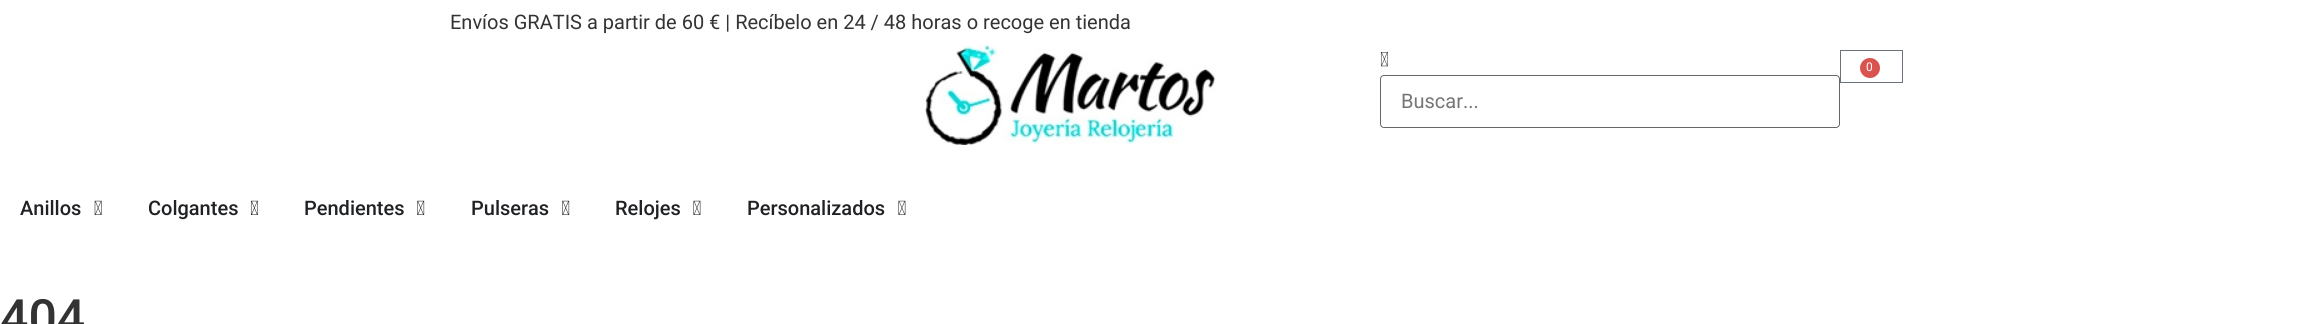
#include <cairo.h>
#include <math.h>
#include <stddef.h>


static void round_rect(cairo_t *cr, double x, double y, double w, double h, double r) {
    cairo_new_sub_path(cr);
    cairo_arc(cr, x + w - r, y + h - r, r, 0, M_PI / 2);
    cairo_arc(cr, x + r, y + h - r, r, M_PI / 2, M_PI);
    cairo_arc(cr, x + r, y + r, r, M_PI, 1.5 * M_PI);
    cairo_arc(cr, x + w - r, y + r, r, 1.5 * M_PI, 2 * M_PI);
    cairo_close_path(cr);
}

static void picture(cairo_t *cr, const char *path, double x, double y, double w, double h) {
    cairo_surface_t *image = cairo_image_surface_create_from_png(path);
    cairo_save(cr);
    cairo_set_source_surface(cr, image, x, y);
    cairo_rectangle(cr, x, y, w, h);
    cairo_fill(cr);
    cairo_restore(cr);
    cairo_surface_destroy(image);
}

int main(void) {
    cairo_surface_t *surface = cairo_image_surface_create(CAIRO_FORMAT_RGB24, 2299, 324);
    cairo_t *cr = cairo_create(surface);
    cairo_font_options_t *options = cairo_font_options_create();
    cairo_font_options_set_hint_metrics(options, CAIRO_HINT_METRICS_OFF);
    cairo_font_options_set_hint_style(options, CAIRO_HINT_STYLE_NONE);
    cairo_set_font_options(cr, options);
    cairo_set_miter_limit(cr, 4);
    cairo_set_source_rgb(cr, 1, 1, 1);
    cairo_paint(cr);
    cairo_select_font_face(cr, "Roboto", CAIRO_FONT_SLANT_NORMAL, CAIRO_FONT_WEIGHT_NORMAL);
    cairo_set_font_size(cr, 20);
    cairo_set_source_rgb(cr, 0.2, 0.2, 0.2);
    cairo_move_to(cr, 450, 29);
    cairo_show_text(cr, "Envíos GRATIS a partir de 60 € | Recíbelo en 24 / 48 horas o recoge en tienda");
    picture(cr, "img1.png", 925, 45, 291, 100);
    cairo_rectangle(cr, 1840.5, 50.5, 62, 32);
    cairo_set_source_rgb(cr, 0.412, 0.447, 0.49);
    cairo_set_line_width(cr, 1);
    cairo_stroke(cr);
    cairo_set_source_rgb(cr, 0.851, 0.325, 0.31);
    cairo_arc(cr, 1870, 68, 10, 0, 2 * M_PI);
    cairo_fill(cr);
    cairo_set_font_size(cr, 12);
    cairo_set_source_rgb(cr, 1, 1, 1);
    cairo_move_to(cr, 1866, 71);
    cairo_show_text(cr, "0");
    picture(cr, "img2.png", 1380, 52, 8, 15);
    round_rect(cr, 1380.5, 75.5, 459, 52, 3.5);
    cairo_set_source_rgb(cr, 0.4, 0.4, 0.4);
    cairo_stroke(cr);
    cairo_set_font_size(cr, 20);
    cairo_set_source_rgb(cr, 0.459, 0.459, 0.459);
    cairo_move_to(cr, 1401, 108);
    cairo_show_text(cr, "Buscar...");
    cairo_select_font_face(cr, "Roboto Medium", CAIRO_FONT_SLANT_NORMAL, CAIRO_FONT_WEIGHT_NORMAL);
    cairo_set_source_rgb(cr, 0.122, 0.129, 0.141);
    cairo_move_to(cr, 20, 215);
    cairo_show_text(cr, "Anillos");
    picture(cr, "img3.png", 94, 200, 8, 15);
    cairo_move_to(cr, 148, 215);
    cairo_show_text(cr, "Colgantes");
    picture(cr, "img4.png", 250, 200, 8, 15);
    cairo_move_to(cr, 304, 215);
    cairo_show_text(cr, "Pendientes");
    picture(cr, "img5.png", 417, 200, 8, 15);
    cairo_move_to(cr, 471, 215);
    cairo_show_text(cr, "Pulseras");
    picture(cr, "img5.png", 562, 200, 8, 15);
    cairo_move_to(cr, 615, 215);
    cairo_show_text(cr, "Relojes");
    picture(cr, "img6.png", 693, 200, 8, 15);
    cairo_move_to(cr, 747, 215);
    cairo_show_text(cr, "Personalizados");
    picture(cr, "img6.png", 898, 200, 8, 15);
    cairo_set_font_size(cr, 50);
    cairo_set_source_rgb(cr, 0.2, 0.2, 0.2);
    cairo_move_to(cr, 0, 335);
    cairo_show_text(cr, "404");
    cairo_surface_write_to_png(surface, "page.png");
    cairo_font_options_destroy(options);
    cairo_destroy(cr);
    cairo_surface_destroy(surface);
    return 0;
}
